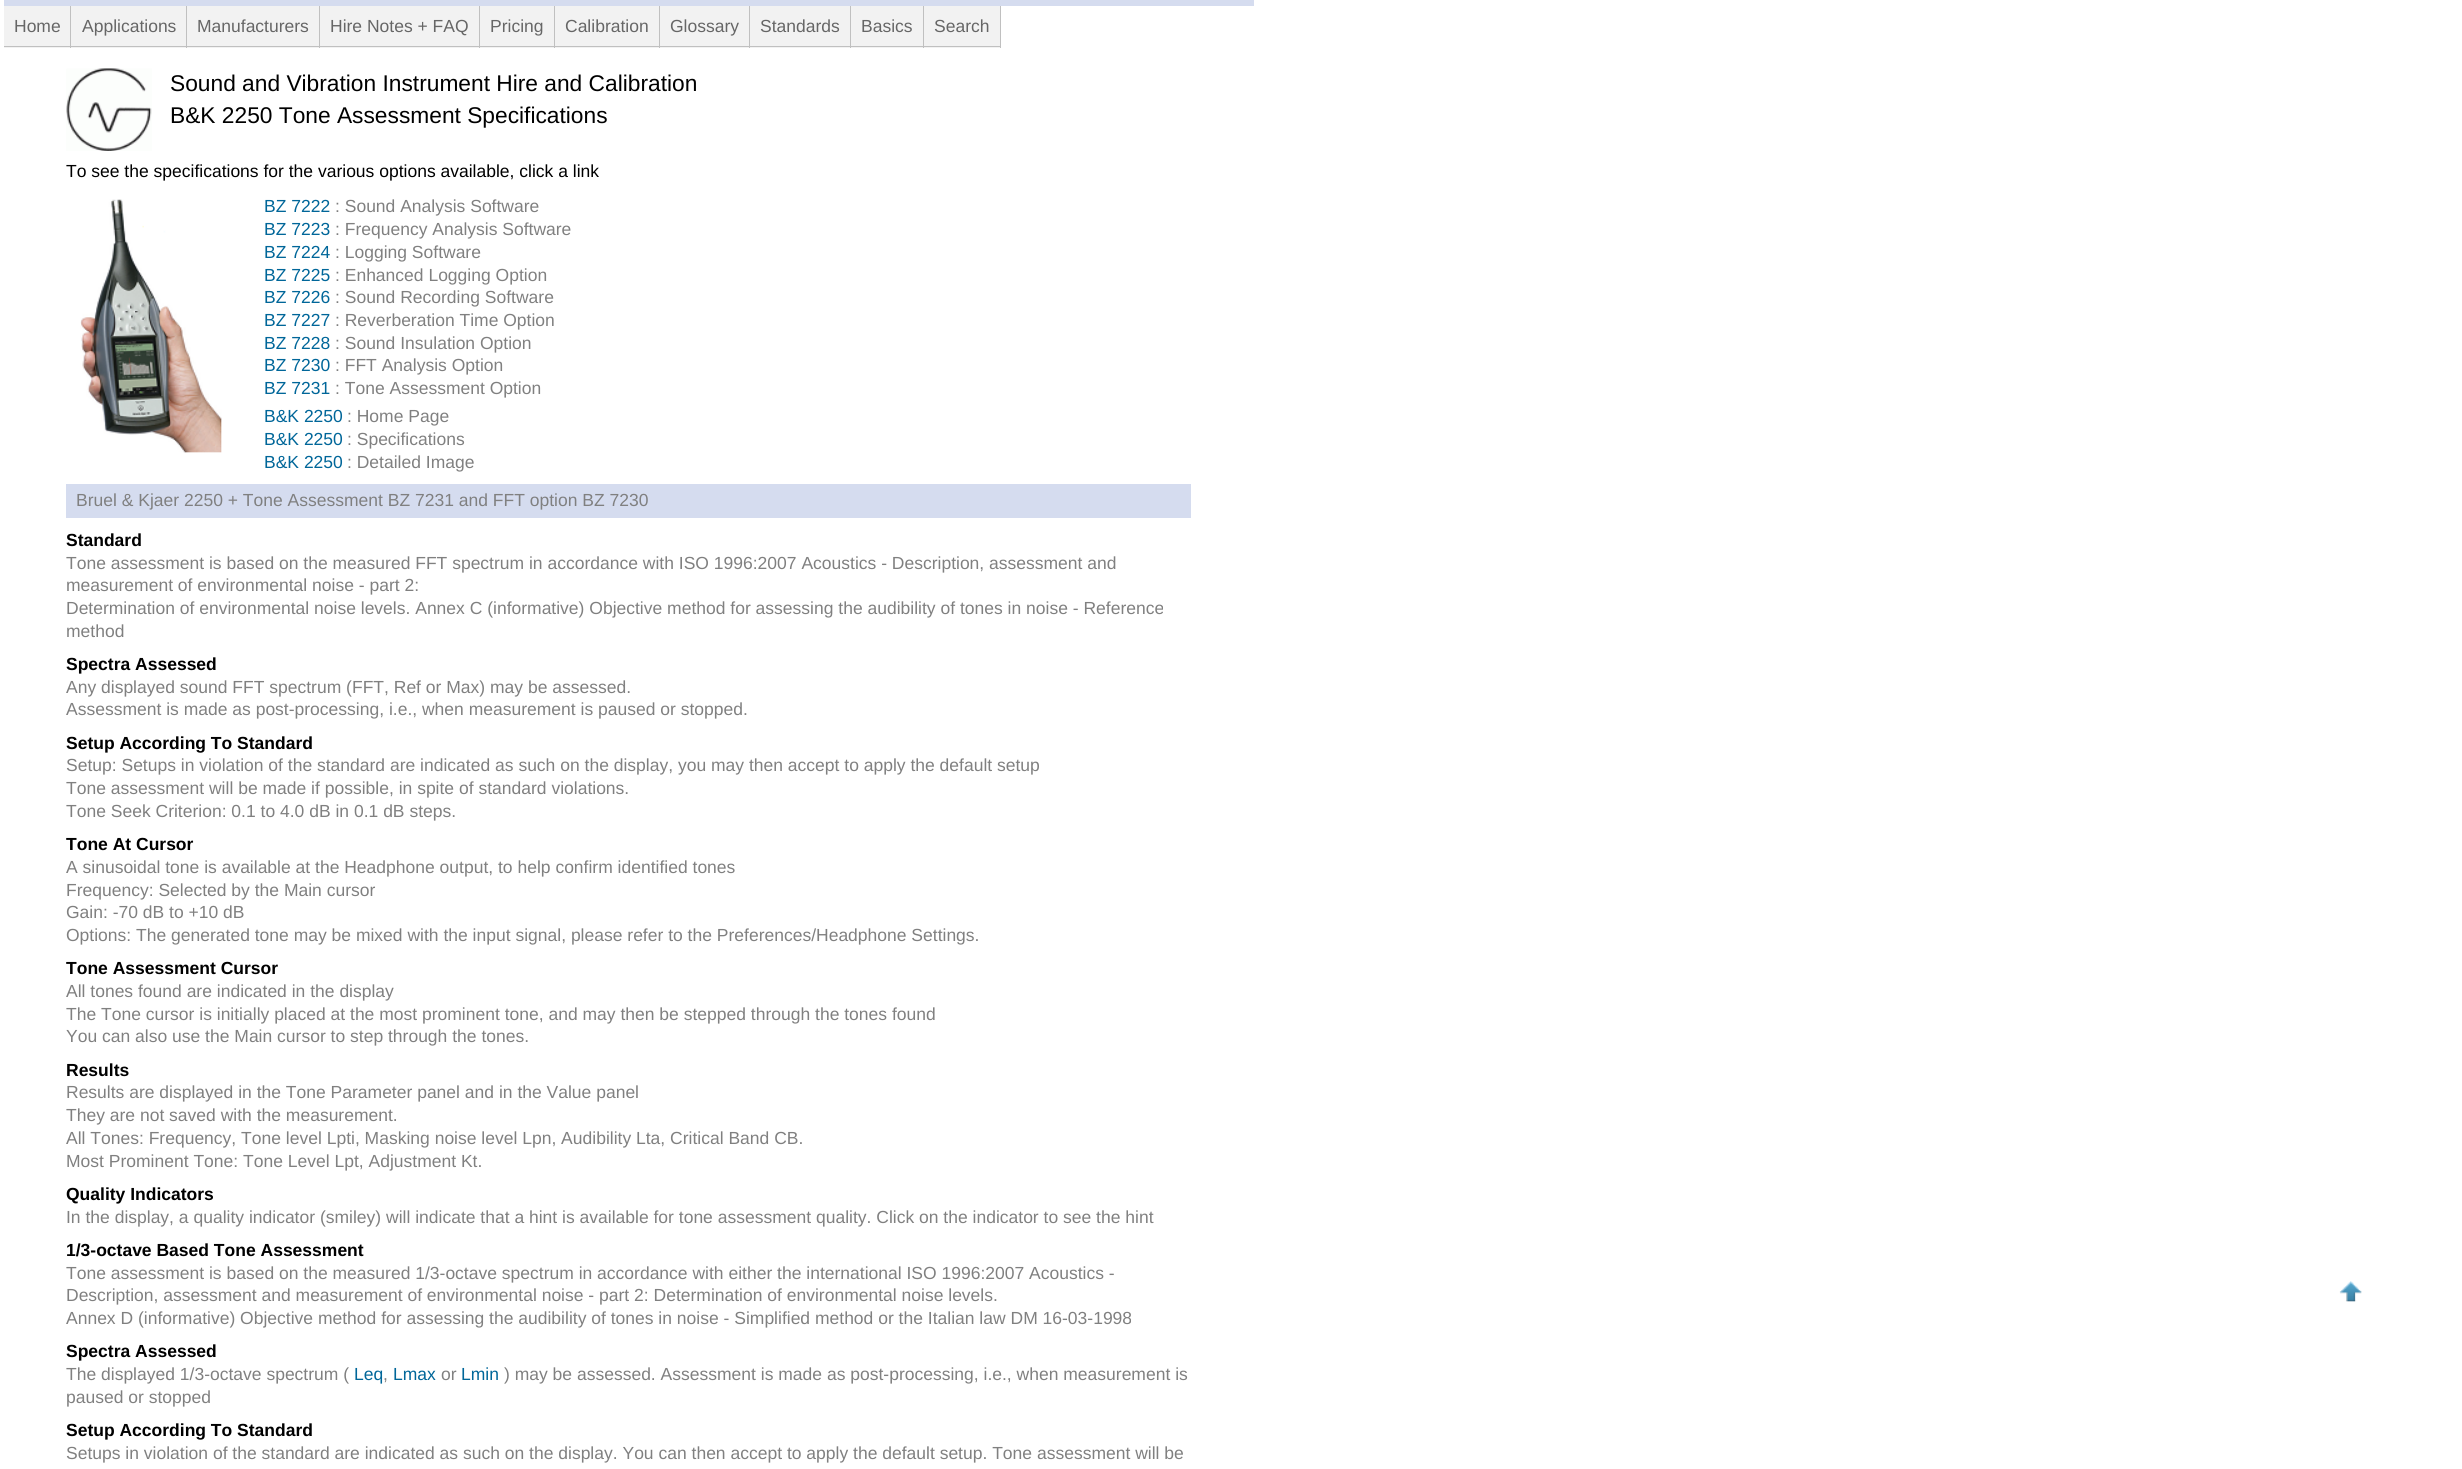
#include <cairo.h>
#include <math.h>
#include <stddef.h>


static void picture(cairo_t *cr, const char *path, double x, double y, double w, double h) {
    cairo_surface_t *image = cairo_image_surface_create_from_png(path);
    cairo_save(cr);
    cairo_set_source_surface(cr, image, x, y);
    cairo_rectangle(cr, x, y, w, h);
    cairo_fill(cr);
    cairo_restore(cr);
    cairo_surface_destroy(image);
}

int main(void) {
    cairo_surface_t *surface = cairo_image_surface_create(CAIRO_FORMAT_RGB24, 2462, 1469);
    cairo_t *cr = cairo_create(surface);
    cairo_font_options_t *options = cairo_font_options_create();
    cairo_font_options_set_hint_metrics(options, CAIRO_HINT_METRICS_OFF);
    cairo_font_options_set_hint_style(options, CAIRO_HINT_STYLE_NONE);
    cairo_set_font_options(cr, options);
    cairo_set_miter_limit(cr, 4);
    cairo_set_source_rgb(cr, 1, 1, 1);
    cairo_paint(cr);
    cairo_set_source_rgb(cr, 0.835, 0.863, 0.937);
    cairo_rectangle(cr, 4, 0, 1250, 6);
    cairo_fill(cr);
    cairo_set_source_rgb(cr, 0.949, 0.949, 0.949);
    cairo_rectangle(cr, 4, 6, 66, 42);
    cairo_fill(cr);
    cairo_set_source_rgb(cr, 0.753, 0.753, 0.753);
    cairo_rectangle(cr, 70, 6, 1, 42);
    cairo_fill(cr);
    cairo_rectangle(cr, 4, 46, 67, 1);
    cairo_fill(cr);
    cairo_select_font_face(cr, "Liberation Sans", CAIRO_FONT_SLANT_NORMAL, CAIRO_FONT_WEIGHT_NORMAL);
    cairo_set_font_size(cr, 17.5);
    cairo_set_source_rgb(cr, 0.4, 0.4, 0.4);
    cairo_move_to(cr, 14, 32);
    cairo_show_text(cr, "Home");
    cairo_set_source_rgb(cr, 0.949, 0.949, 0.949);
    cairo_rectangle(cr, 71, 6, 248, 42);
    cairo_fill(cr);
    cairo_set_source_rgb(cr, 0.753, 0.753, 0.753);
    cairo_rectangle(cr, 186, 6, 1, 42);
    cairo_fill(cr);
    cairo_rectangle(cr, 71, 46, 117, 1);
    cairo_fill(cr);
    cairo_set_source_rgb(cr, 0.4, 0.4, 0.4);
    cairo_move_to(cr, 82, 32);
    cairo_show_text(cr, "Applications");
    cairo_set_source_rgb(cr, 0.753, 0.753, 0.753);
    cairo_rectangle(cr, 319, 6, 1, 42);
    cairo_fill(cr);
    cairo_rectangle(cr, 188, 46, 132, 1);
    cairo_fill(cr);
    cairo_set_source_rgb(cr, 0.4, 0.4, 0.4);
    cairo_move_to(cr, 197, 32);
    cairo_show_text(cr, "Manufacturers");
    cairo_set_source_rgb(cr, 0.949, 0.949, 0.949);
    cairo_rectangle(cr, 320, 6, 159, 42);
    cairo_fill(cr);
    cairo_set_source_rgb(cr, 0.753, 0.753, 0.753);
    cairo_rectangle(cr, 479, 6, 1, 42);
    cairo_fill(cr);
    cairo_rectangle(cr, 320, 46, 160, 1);
    cairo_fill(cr);
    cairo_set_source_rgb(cr, 0.4, 0.4, 0.4);
    cairo_move_to(cr, 330, 32);
    cairo_show_text(cr, "Hire Notes + FAQ");
    cairo_set_source_rgb(cr, 0.949, 0.949, 0.949);
    cairo_rectangle(cr, 480, 6, 74, 42);
    cairo_fill(cr);
    cairo_set_source_rgb(cr, 0.753, 0.753, 0.753);
    cairo_rectangle(cr, 554, 6, 1, 42);
    cairo_fill(cr);
    cairo_rectangle(cr, 480, 46, 75, 1);
    cairo_fill(cr);
    cairo_set_source_rgb(cr, 0.4, 0.4, 0.4);
    cairo_move_to(cr, 490, 32);
    cairo_show_text(cr, "Pricing");
    cairo_set_source_rgb(cr, 0.949, 0.949, 0.949);
    cairo_rectangle(cr, 555, 6, 104, 42);
    cairo_fill(cr);
    cairo_set_source_rgb(cr, 0.753, 0.753, 0.753);
    cairo_rectangle(cr, 659, 6, 1, 42);
    cairo_fill(cr);
    cairo_rectangle(cr, 555, 46, 105, 1);
    cairo_fill(cr);
    cairo_set_source_rgb(cr, 0.4, 0.4, 0.4);
    cairo_move_to(cr, 565, 32);
    cairo_show_text(cr, "Calibration");
    cairo_set_source_rgb(cr, 0.949, 0.949, 0.949);
    cairo_rectangle(cr, 660, 6, 89, 42);
    cairo_fill(cr);
    cairo_set_source_rgb(cr, 0.753, 0.753, 0.753);
    cairo_rectangle(cr, 749, 6, 1, 42);
    cairo_fill(cr);
    cairo_rectangle(cr, 660, 46, 90, 1);
    cairo_fill(cr);
    cairo_set_source_rgb(cr, 0.4, 0.4, 0.4);
    cairo_move_to(cr, 670, 32);
    cairo_show_text(cr, "Glossary");
    cairo_set_source_rgb(cr, 0.949, 0.949, 0.949);
    cairo_rectangle(cr, 750, 6, 100, 42);
    cairo_fill(cr);
    cairo_set_source_rgb(cr, 0.753, 0.753, 0.753);
    cairo_rectangle(cr, 850, 6, 1, 42);
    cairo_fill(cr);
    cairo_rectangle(cr, 750, 46, 101, 1);
    cairo_fill(cr);
    cairo_set_source_rgb(cr, 0.4, 0.4, 0.4);
    cairo_move_to(cr, 760, 32);
    cairo_show_text(cr, "Standards");
    cairo_set_source_rgb(cr, 0.949, 0.949, 0.949);
    cairo_rectangle(cr, 851, 6, 72, 42);
    cairo_fill(cr);
    cairo_set_source_rgb(cr, 0.753, 0.753, 0.753);
    cairo_rectangle(cr, 923, 6, 1, 42);
    cairo_fill(cr);
    cairo_rectangle(cr, 851, 46, 73, 1);
    cairo_fill(cr);
    cairo_set_source_rgb(cr, 0.4, 0.4, 0.4);
    cairo_move_to(cr, 861, 32);
    cairo_show_text(cr, "Basics");
    cairo_set_source_rgb(cr, 0.949, 0.949, 0.949);
    cairo_rectangle(cr, 924, 6, 76, 42);
    cairo_fill(cr);
    cairo_set_source_rgb(cr, 0.753, 0.753, 0.753);
    cairo_rectangle(cr, 1000, 6, 1, 42);
    cairo_fill(cr);
    cairo_rectangle(cr, 924, 46, 77, 1);
    cairo_fill(cr);
    cairo_set_source_rgb(cr, 0.4, 0.4, 0.4);
    cairo_move_to(cr, 934, 32);
    cairo_show_text(cr, "Search");
    picture(cr, "img1.png", 66, 68, 86, 83);
    cairo_set_font_size(cr, 22.75);
    cairo_set_source_rgb(cr, 0, 0, 0);
    cairo_move_to(cr, 170, 91);
    cairo_show_text(cr, "Sound and Vibration Instrument Hire and Calibration");
    cairo_move_to(cr, 170, 123);
    cairo_show_text(cr, "B&K 2250 Tone Assessment Specifications");
    cairo_set_font_size(cr, 17.5);
    cairo_move_to(cr, 66, 177);
    cairo_show_text(cr, "To see the specifications for the various options available, click a link");
    cairo_set_source_rgb(cr, 0, 0.4, 0.6);
    cairo_move_to(cr, 264, 212);
    cairo_show_text(cr, "BZ 7222");
    cairo_set_source_rgb(cr, 0.502, 0.502, 0.502);
    cairo_move_to(cr, 335, 212);
    cairo_show_text(cr, ": Sound Analysis Software");
    cairo_set_source_rgb(cr, 0, 0.4, 0.6);
    cairo_move_to(cr, 264, 235);
    cairo_show_text(cr, "BZ 7223");
    cairo_set_source_rgb(cr, 0.502, 0.502, 0.502);
    cairo_move_to(cr, 335, 235);
    cairo_show_text(cr, ": Frequency Analysis Software");
    cairo_set_source_rgb(cr, 0, 0.4, 0.6);
    cairo_move_to(cr, 264, 258);
    cairo_show_text(cr, "BZ 7224");
    cairo_set_source_rgb(cr, 0.502, 0.502, 0.502);
    cairo_move_to(cr, 335, 258);
    cairo_show_text(cr, ": Logging Software");
    cairo_set_source_rgb(cr, 0, 0.4, 0.6);
    cairo_move_to(cr, 264, 281);
    cairo_show_text(cr, "BZ 7225");
    cairo_set_source_rgb(cr, 0.502, 0.502, 0.502);
    cairo_move_to(cr, 335, 281);
    cairo_show_text(cr, ": Enhanced Logging Option");
    cairo_set_source_rgb(cr, 0, 0.4, 0.6);
    cairo_move_to(cr, 264, 303);
    cairo_show_text(cr, "BZ 7226");
    cairo_set_source_rgb(cr, 0.502, 0.502, 0.502);
    cairo_move_to(cr, 335, 303);
    cairo_show_text(cr, ": Sound Recording Software");
    cairo_set_source_rgb(cr, 0, 0.4, 0.6);
    cairo_move_to(cr, 264, 326);
    cairo_show_text(cr, "BZ 7227");
    cairo_set_source_rgb(cr, 0.502, 0.502, 0.502);
    cairo_move_to(cr, 335, 326);
    cairo_show_text(cr, ": Reverberation Time Option");
    cairo_set_source_rgb(cr, 0, 0.4, 0.6);
    cairo_move_to(cr, 264, 349);
    cairo_show_text(cr, "BZ 7228");
    cairo_set_source_rgb(cr, 0.502, 0.502, 0.502);
    cairo_move_to(cr, 335, 349);
    cairo_show_text(cr, ": Sound Insulation Option");
    cairo_set_source_rgb(cr, 0, 0.4, 0.6);
    cairo_move_to(cr, 264, 371);
    cairo_show_text(cr, "BZ 7230");
    cairo_set_source_rgb(cr, 0.502, 0.502, 0.502);
    cairo_move_to(cr, 335, 371);
    cairo_show_text(cr, ": FFT Analysis Option");
    cairo_set_source_rgb(cr, 0, 0.4, 0.6);
    cairo_move_to(cr, 264, 394);
    cairo_show_text(cr, "BZ 7231");
    cairo_set_source_rgb(cr, 0.502, 0.502, 0.502);
    cairo_move_to(cr, 335, 394);
    cairo_show_text(cr, ": Tone Assessment Option");
    cairo_set_source_rgb(cr, 0, 0.4, 0.6);
    cairo_move_to(cr, 264, 422);
    cairo_show_text(cr, "B&K 2250");
    cairo_set_source_rgb(cr, 0.502, 0.502, 0.502);
    cairo_move_to(cr, 347, 422);
    cairo_show_text(cr, ": Home Page");
    cairo_set_source_rgb(cr, 0, 0.4, 0.6);
    cairo_move_to(cr, 264, 445);
    cairo_show_text(cr, "B&K 2250");
    cairo_set_source_rgb(cr, 0.502, 0.502, 0.502);
    cairo_move_to(cr, 347, 445);
    cairo_show_text(cr, ": Specifications");
    cairo_set_source_rgb(cr, 0, 0.4, 0.6);
    cairo_move_to(cr, 264, 468);
    cairo_show_text(cr, "B&K 2250");
    cairo_set_source_rgb(cr, 0.502, 0.502, 0.502);
    cairo_move_to(cr, 347, 468);
    cairo_show_text(cr, ": Detailed Image");
    cairo_set_source_rgb(cr, 0.835, 0.863, 0.937);
    cairo_rectangle(cr, 66, 484, 1125, 34);
    cairo_fill(cr);
    cairo_set_source_rgb(cr, 0.502, 0.502, 0.502);
    cairo_move_to(cr, 76, 506);
    cairo_show_text(cr, "Bruel & Kjaer 2250 + Tone Assessment BZ 7231 and FFT option BZ 7230");
    cairo_select_font_face(cr, "Liberation Sans", CAIRO_FONT_SLANT_NORMAL, CAIRO_FONT_WEIGHT_BOLD);
    cairo_set_source_rgb(cr, 0, 0, 0);
    cairo_move_to(cr, 66, 546);
    cairo_show_text(cr, "Standard");
    cairo_select_font_face(cr, "Liberation Sans", CAIRO_FONT_SLANT_NORMAL, CAIRO_FONT_WEIGHT_NORMAL);
    cairo_set_source_rgb(cr, 0.502, 0.502, 0.502);
    cairo_move_to(cr, 66, 569);
    cairo_show_text(cr, "Tone assessment is based on the measured FFT spectrum in accordance with ISO 1996:2007 Acoustics - Description, assessment and");
    cairo_move_to(cr, 66, 591);
    cairo_show_text(cr, "measurement of environmental noise - part 2:");
    cairo_move_to(cr, 66, 614);
    cairo_show_text(cr, "Determination of environmental noise levels. Annex C (informative) Objective method for assessing the audibility of tones in noise - Reference");
    cairo_move_to(cr, 66, 637);
    cairo_show_text(cr, "method");
    cairo_select_font_face(cr, "Liberation Sans", CAIRO_FONT_SLANT_NORMAL, CAIRO_FONT_WEIGHT_BOLD);
    cairo_set_source_rgb(cr, 0, 0, 0);
    cairo_move_to(cr, 66, 670);
    cairo_show_text(cr, "Spectra Assessed");
    cairo_select_font_face(cr, "Liberation Sans", CAIRO_FONT_SLANT_NORMAL, CAIRO_FONT_WEIGHT_NORMAL);
    cairo_set_source_rgb(cr, 0.502, 0.502, 0.502);
    cairo_move_to(cr, 66, 693);
    cairo_show_text(cr, "Any displayed sound FFT spectrum (FFT, Ref or Max) may be assessed.");
    cairo_move_to(cr, 66, 715);
    cairo_show_text(cr, "Assessment is made as post-processing, i.e., when measurement is paused or stopped.");
    cairo_select_font_face(cr, "Liberation Sans", CAIRO_FONT_SLANT_NORMAL, CAIRO_FONT_WEIGHT_BOLD);
    cairo_set_source_rgb(cr, 0, 0, 0);
    cairo_move_to(cr, 66, 749);
    cairo_show_text(cr, "Setup According To Standard");
    cairo_select_font_face(cr, "Liberation Sans", CAIRO_FONT_SLANT_NORMAL, CAIRO_FONT_WEIGHT_NORMAL);
    cairo_set_source_rgb(cr, 0.502, 0.502, 0.502);
    cairo_move_to(cr, 66, 771);
    cairo_show_text(cr, "Setup: Setups in violation of the standard are indicated as such on the display, you may then accept to apply the default setup");
    cairo_move_to(cr, 66, 794);
    cairo_show_text(cr, "Tone assessment will be made if possible, in spite of standard violations.");
    cairo_move_to(cr, 66, 817);
    cairo_show_text(cr, "Tone Seek Criterion: 0.1 to 4.0 dB in 0.1 dB steps.");
    cairo_select_font_face(cr, "Liberation Sans", CAIRO_FONT_SLANT_NORMAL, CAIRO_FONT_WEIGHT_BOLD);
    cairo_set_source_rgb(cr, 0, 0, 0);
    cairo_move_to(cr, 66, 850);
    cairo_show_text(cr, "Tone At Cursor");
    cairo_select_font_face(cr, "Liberation Sans", CAIRO_FONT_SLANT_NORMAL, CAIRO_FONT_WEIGHT_NORMAL);
    cairo_set_source_rgb(cr, 0.502, 0.502, 0.502);
    cairo_move_to(cr, 66, 873);
    cairo_show_text(cr, "A sinusoidal tone is available at the Headphone output, to help confirm identified tones");
    cairo_move_to(cr, 66, 896);
    cairo_show_text(cr, "Frequency: Selected by the Main cursor");
    cairo_move_to(cr, 66, 918);
    cairo_show_text(cr, "Gain: -70 dB to +10 dB");
    cairo_move_to(cr, 66, 941);
    cairo_show_text(cr, "Options: The generated tone may be mixed with the input signal, please refer to the Preferences/Headphone Settings.");
    cairo_select_font_face(cr, "Liberation Sans", CAIRO_FONT_SLANT_NORMAL, CAIRO_FONT_WEIGHT_BOLD);
    cairo_set_source_rgb(cr, 0, 0, 0);
    cairo_move_to(cr, 66, 974);
    cairo_show_text(cr, "Tone Assessment Cursor");
    cairo_select_font_face(cr, "Liberation Sans", CAIRO_FONT_SLANT_NORMAL, CAIRO_FONT_WEIGHT_NORMAL);
    cairo_set_source_rgb(cr, 0.502, 0.502, 0.502);
    cairo_move_to(cr, 66, 997);
    cairo_show_text(cr, "All tones found are indicated in the display");
    cairo_move_to(cr, 66, 1020);
    cairo_show_text(cr, "The Tone cursor is initially placed at the most prominent tone, and may then be stepped through the tones found");
    cairo_move_to(cr, 66, 1042);
    cairo_show_text(cr, "You can also use the Main cursor to step through the tones.");
    cairo_select_font_face(cr, "Liberation Sans", CAIRO_FONT_SLANT_NORMAL, CAIRO_FONT_WEIGHT_BOLD);
    cairo_set_source_rgb(cr, 0, 0, 0);
    cairo_move_to(cr, 66, 1076);
    cairo_show_text(cr, "Results");
    cairo_select_font_face(cr, "Liberation Sans", CAIRO_FONT_SLANT_NORMAL, CAIRO_FONT_WEIGHT_NORMAL);
    cairo_set_source_rgb(cr, 0.502, 0.502, 0.502);
    cairo_move_to(cr, 66, 1098);
    cairo_show_text(cr, "Results are displayed in the Tone Parameter panel and in the Value panel");
    cairo_move_to(cr, 66, 1121);
    cairo_show_text(cr, "They are not saved with the measurement.");
    cairo_move_to(cr, 66, 1144);
    cairo_show_text(cr, "All Tones: Frequency, Tone level Lpti, Masking noise level Lpn, Audibility Lta, Critical Band CB.");
    cairo_move_to(cr, 66, 1167);
    cairo_show_text(cr, "Most Prominent Tone: Tone Level Lpt, Adjustment Kt.");
    cairo_select_font_face(cr, "Liberation Sans", CAIRO_FONT_SLANT_NORMAL, CAIRO_FONT_WEIGHT_BOLD);
    cairo_set_source_rgb(cr, 0, 0, 0);
    cairo_move_to(cr, 66, 1200);
    cairo_show_text(cr, "Quality Indicators");
    cairo_select_font_face(cr, "Liberation Sans", CAIRO_FONT_SLANT_NORMAL, CAIRO_FONT_WEIGHT_NORMAL);
    cairo_set_source_rgb(cr, 0.502, 0.502, 0.502);
    cairo_move_to(cr, 66, 1223);
    cairo_show_text(cr, "In the display, a quality indicator (smiley) will indicate that a hint is available for tone assessment quality. Click on the indicator to see the hint");
    cairo_select_font_face(cr, "Liberation Sans", CAIRO_FONT_SLANT_NORMAL, CAIRO_FONT_WEIGHT_BOLD);
    cairo_set_source_rgb(cr, 0, 0, 0);
    cairo_move_to(cr, 66, 1256);
    cairo_show_text(cr, "1/3-octave Based Tone Assessment");
    cairo_select_font_face(cr, "Liberation Sans", CAIRO_FONT_SLANT_NORMAL, CAIRO_FONT_WEIGHT_NORMAL);
    cairo_set_source_rgb(cr, 0.502, 0.502, 0.502);
    cairo_move_to(cr, 66, 1279);
    cairo_show_text(cr, "Tone assessment is based on the measured 1/3-octave spectrum in accordance with either the international ISO 1996:2007 Acoustics -");
    cairo_move_to(cr, 66, 1301);
    cairo_show_text(cr, "Description, assessment and measurement of environmental noise - part 2: Determination of environmental noise levels.");
    picture(cr, "img2.png", 2339, 1281, 23, 21);
    cairo_move_to(cr, 66, 1324);
    cairo_show_text(cr, "Annex D (informative) Objective method for assessing the audibility of tones in noise - Simplified method or the Italian law DM 16-03-1998");
    cairo_select_font_face(cr, "Liberation Sans", CAIRO_FONT_SLANT_NORMAL, CAIRO_FONT_WEIGHT_BOLD);
    cairo_set_source_rgb(cr, 0, 0, 0);
    cairo_move_to(cr, 66, 1357);
    cairo_show_text(cr, "Spectra Assessed");
    cairo_select_font_face(cr, "Liberation Sans", CAIRO_FONT_SLANT_NORMAL, CAIRO_FONT_WEIGHT_NORMAL);
    cairo_set_source_rgb(cr, 0.502, 0.502, 0.502);
    cairo_move_to(cr, 66, 1380);
    cairo_show_text(cr, "The displayed 1/3-octave spectrum (");
    cairo_set_source_rgb(cr, 0, 0.4, 0.6);
    cairo_move_to(cr, 354, 1380);
    cairo_show_text(cr, "Leq");
    cairo_set_source_rgb(cr, 0.502, 0.502, 0.502);
    cairo_move_to(cr, 383, 1380);
    cairo_show_text(cr, ",");
    cairo_set_source_rgb(cr, 0, 0.4, 0.6);
    cairo_move_to(cr, 393, 1380);
    cairo_show_text(cr, "Lmax");
    cairo_set_source_rgb(cr, 0.502, 0.502, 0.502);
    cairo_move_to(cr, 441, 1380);
    cairo_show_text(cr, "or");
    cairo_set_source_rgb(cr, 0, 0.4, 0.6);
    cairo_move_to(cr, 461, 1380);
    cairo_show_text(cr, "Lmin");
    cairo_set_source_rgb(cr, 0.502, 0.502, 0.502);
    cairo_move_to(cr, 504, 1380);
    cairo_show_text(cr, ") may be assessed. Assessment is made as post-processing, i.e., when measurement is");
    cairo_move_to(cr, 66, 1403);
    cairo_show_text(cr, "paused or stopped");
    cairo_select_font_face(cr, "Liberation Sans", CAIRO_FONT_SLANT_NORMAL, CAIRO_FONT_WEIGHT_BOLD);
    cairo_set_source_rgb(cr, 0, 0, 0);
    cairo_move_to(cr, 66, 1436);
    cairo_show_text(cr, "Setup According To Standard");
    cairo_select_font_face(cr, "Liberation Sans", CAIRO_FONT_SLANT_NORMAL, CAIRO_FONT_WEIGHT_NORMAL);
    cairo_set_source_rgb(cr, 0.502, 0.502, 0.502);
    cairo_move_to(cr, 66, 1459);
    cairo_show_text(cr, "Setups in violation of the standard are indicated as such on the display. You can then accept to apply the default setup. Tone assessment will be");
    picture(cr, "img3.png", 80, 199, 142, 254);
    cairo_surface_write_to_png(surface, "page.png");
    cairo_font_options_destroy(options);
    cairo_destroy(cr);
    cairo_surface_destroy(surface);
    return 0;
}
